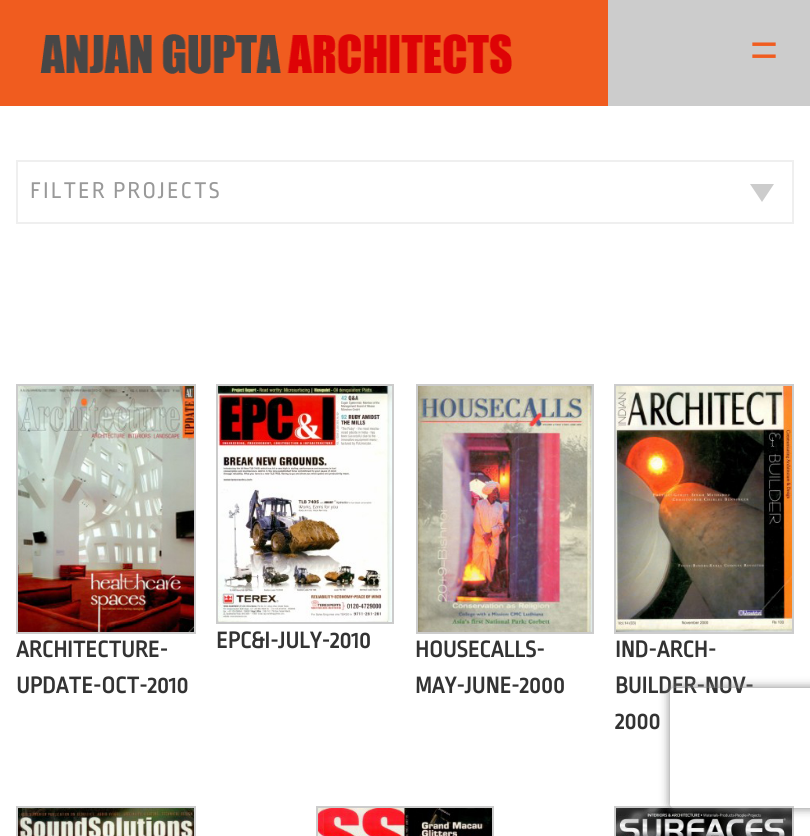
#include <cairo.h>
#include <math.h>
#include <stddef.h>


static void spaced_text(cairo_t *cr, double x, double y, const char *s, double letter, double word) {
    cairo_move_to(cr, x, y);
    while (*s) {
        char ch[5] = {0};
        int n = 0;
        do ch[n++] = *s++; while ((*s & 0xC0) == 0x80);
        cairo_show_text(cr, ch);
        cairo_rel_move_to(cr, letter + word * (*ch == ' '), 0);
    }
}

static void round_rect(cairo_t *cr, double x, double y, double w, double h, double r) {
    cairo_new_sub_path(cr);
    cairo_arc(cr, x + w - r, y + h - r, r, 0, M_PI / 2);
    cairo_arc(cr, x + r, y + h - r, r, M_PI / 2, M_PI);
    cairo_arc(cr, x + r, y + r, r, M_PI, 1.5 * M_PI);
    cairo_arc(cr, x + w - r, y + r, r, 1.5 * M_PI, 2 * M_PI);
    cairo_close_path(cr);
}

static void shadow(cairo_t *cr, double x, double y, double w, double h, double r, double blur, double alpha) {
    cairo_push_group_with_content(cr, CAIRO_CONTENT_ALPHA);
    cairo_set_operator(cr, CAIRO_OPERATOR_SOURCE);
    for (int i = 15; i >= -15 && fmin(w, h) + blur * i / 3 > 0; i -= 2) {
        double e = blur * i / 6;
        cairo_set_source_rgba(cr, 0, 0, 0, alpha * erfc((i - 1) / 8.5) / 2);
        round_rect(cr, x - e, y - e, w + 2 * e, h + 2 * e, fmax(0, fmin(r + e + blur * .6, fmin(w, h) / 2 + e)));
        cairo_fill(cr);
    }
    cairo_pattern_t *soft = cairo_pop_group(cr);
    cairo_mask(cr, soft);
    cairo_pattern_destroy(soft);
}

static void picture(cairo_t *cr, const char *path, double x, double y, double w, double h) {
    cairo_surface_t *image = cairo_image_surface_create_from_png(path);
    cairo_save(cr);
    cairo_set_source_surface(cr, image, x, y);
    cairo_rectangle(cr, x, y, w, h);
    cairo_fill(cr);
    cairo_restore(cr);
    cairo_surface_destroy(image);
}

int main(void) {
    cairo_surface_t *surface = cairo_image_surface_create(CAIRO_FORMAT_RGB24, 810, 836);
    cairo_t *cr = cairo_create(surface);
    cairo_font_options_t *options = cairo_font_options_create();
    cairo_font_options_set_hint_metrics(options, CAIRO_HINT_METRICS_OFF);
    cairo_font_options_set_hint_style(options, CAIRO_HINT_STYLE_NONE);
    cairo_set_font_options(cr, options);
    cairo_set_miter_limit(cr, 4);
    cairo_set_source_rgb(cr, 1, 1, 1);
    cairo_paint(cr);
    cairo_set_source_rgb(cr, 0.8, 0.8, 0.8);
    cairo_rectangle(cr, 608, 0, 202, 106);
    cairo_fill(cr);
    cairo_set_source_rgb(cr, 0.941, 0.361, 0.122);
    cairo_rectangle(cr, 0, 0, 608, 106);
    cairo_fill(cr);
    picture(cr, "img1.png", 40, 34, 472, 40);
    cairo_select_font_face(cr, "Liberation Sans", CAIRO_FONT_SLANT_NORMAL, CAIRO_FONT_WEIGHT_NORMAL);
    cairo_set_font_size(cr, 48);
    cairo_move_to(cr, 750, 66);
    cairo_show_text(cr, "=");
    cairo_rectangle(cr, 17, 161, 776, 62);
    cairo_set_source_rgb(cr, 0.937, 0.937, 0.937);
    cairo_stroke(cr);
    cairo_select_font_face(cr, "Ropa Sans", CAIRO_FONT_SLANT_NORMAL, CAIRO_FONT_WEIGHT_NORMAL);
    cairo_set_font_size(cr, 24);
    cairo_set_source_rgb(cr, 0.6, 0.6, 0.6);
    spaced_text(cr, 30, 198, "FILTER PROJECTS", 2, 0);
    cairo_set_source_rgb(cr, 0.8, 0.8, 0.8);
    cairo_new_path(cr);
    cairo_move_to(cr, 750, 184);
    cairo_line_to(cr, 774, 184);
    cairo_line_to(cr, 762, 202);
    cairo_close_path(cr);
    cairo_fill(cr);
    cairo_rectangle(cr, 17, 385, 178, 248);
    cairo_stroke(cr);
    picture(cr, "img2.png", 18, 386, 176, 246);
    cairo_select_font_face(cr, "Ropa Sans", CAIRO_FONT_SLANT_NORMAL, CAIRO_FONT_WEIGHT_BOLD);
    cairo_set_source_rgb(cr, 0.2, 0.2, 0.2);
    cairo_move_to(cr, 16, 657);
    cairo_show_text(cr, "ARCHITECTURE-");
    cairo_move_to(cr, 16, 693);
    cairo_show_text(cr, "UPDATE-OCT-2010");
    cairo_rectangle(cr, 217, 385, 176, 238);
    cairo_set_source_rgb(cr, 0.8, 0.8, 0.8);
    cairo_stroke(cr);
    picture(cr, "img3.png", 218, 386, 174, 236);
    cairo_set_source_rgb(cr, 0.2, 0.2, 0.2);
    cairo_move_to(cr, 216, 648);
    cairo_show_text(cr, "EPC&I-JULY-2010");
    cairo_rectangle(cr, 417, 385, 176, 248);
    cairo_set_source_rgb(cr, 0.8, 0.8, 0.8);
    cairo_stroke(cr);
    picture(cr, "img4.png", 418, 386, 174, 246);
    cairo_set_source_rgb(cr, 0.2, 0.2, 0.2);
    cairo_move_to(cr, 415, 657);
    cairo_show_text(cr, "HOUSECALLS-");
    cairo_move_to(cr, 415, 693);
    cairo_show_text(cr, "MAY-JUNE-2000");
    cairo_rectangle(cr, 615, 385, 178, 248);
    cairo_set_source_rgb(cr, 0.8, 0.8, 0.8);
    cairo_stroke(cr);
    picture(cr, "img5.png", 616, 386, 176, 246);
    cairo_set_source_rgb(cr, 0.2, 0.2, 0.2);
    cairo_move_to(cr, 615, 657);
    cairo_show_text(cr, "IND-ARCH-");
    cairo_move_to(cr, 615, 693);
    cairo_show_text(cr, "BUILDER-NOV-");
    cairo_move_to(cr, 615, 729);
    cairo_show_text(cr, "2000");
    cairo_rectangle(cr, 17, 807, 178, 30);
    cairo_set_source_rgb(cr, 0.8, 0.8, 0.8);
    cairo_stroke(cr);
    picture(cr, "img6.png", 18, 808, 176, 28);
    cairo_rectangle(cr, 317, 807, 176, 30);
    cairo_stroke(cr);
    picture(cr, "img7.png", 318, 808, 174, 28);
    cairo_rectangle(cr, 615, 807, 178, 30);
    cairo_stroke(cr);
    picture(cr, "img8.png", 616, 808, 176, 28);
    cairo_save(cr);
    cairo_set_fill_rule(cr, CAIRO_FILL_RULE_EVEN_ODD);
    cairo_new_path(cr);
    cairo_move_to(cr, 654, 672);
    cairo_line_to(cr, 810, 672);
    cairo_line_to(cr, 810, 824);
    cairo_line_to(cr, 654, 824);
    cairo_close_path(cr);
    cairo_move_to(cr, 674, 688);
    cairo_line_to(cr, 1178, 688);
    cairo_curve_to(cr, 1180, 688, 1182, 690, 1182, 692);
    cairo_line_to(cr, 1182, 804);
    cairo_curve_to(cr, 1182, 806, 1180, 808, 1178, 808);
    cairo_line_to(cr, 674, 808);
    cairo_curve_to(cr, 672, 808, 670, 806, 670, 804);
    cairo_line_to(cr, 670, 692);
    cairo_curve_to(cr, 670, 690, 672, 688, 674, 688);
    cairo_close_path(cr);
    cairo_clip(cr);
    cairo_set_source_rgb(cr, 0.502, 0.502, 0.502);
    shadow(cr, 670, 688, 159, 120, 4, 5, 1);
    cairo_restore(cr);
    cairo_surface_write_to_png(surface, "page.png");
    cairo_font_options_destroy(options);
    cairo_destroy(cr);
    cairo_surface_destroy(surface);
    return 0;
}
